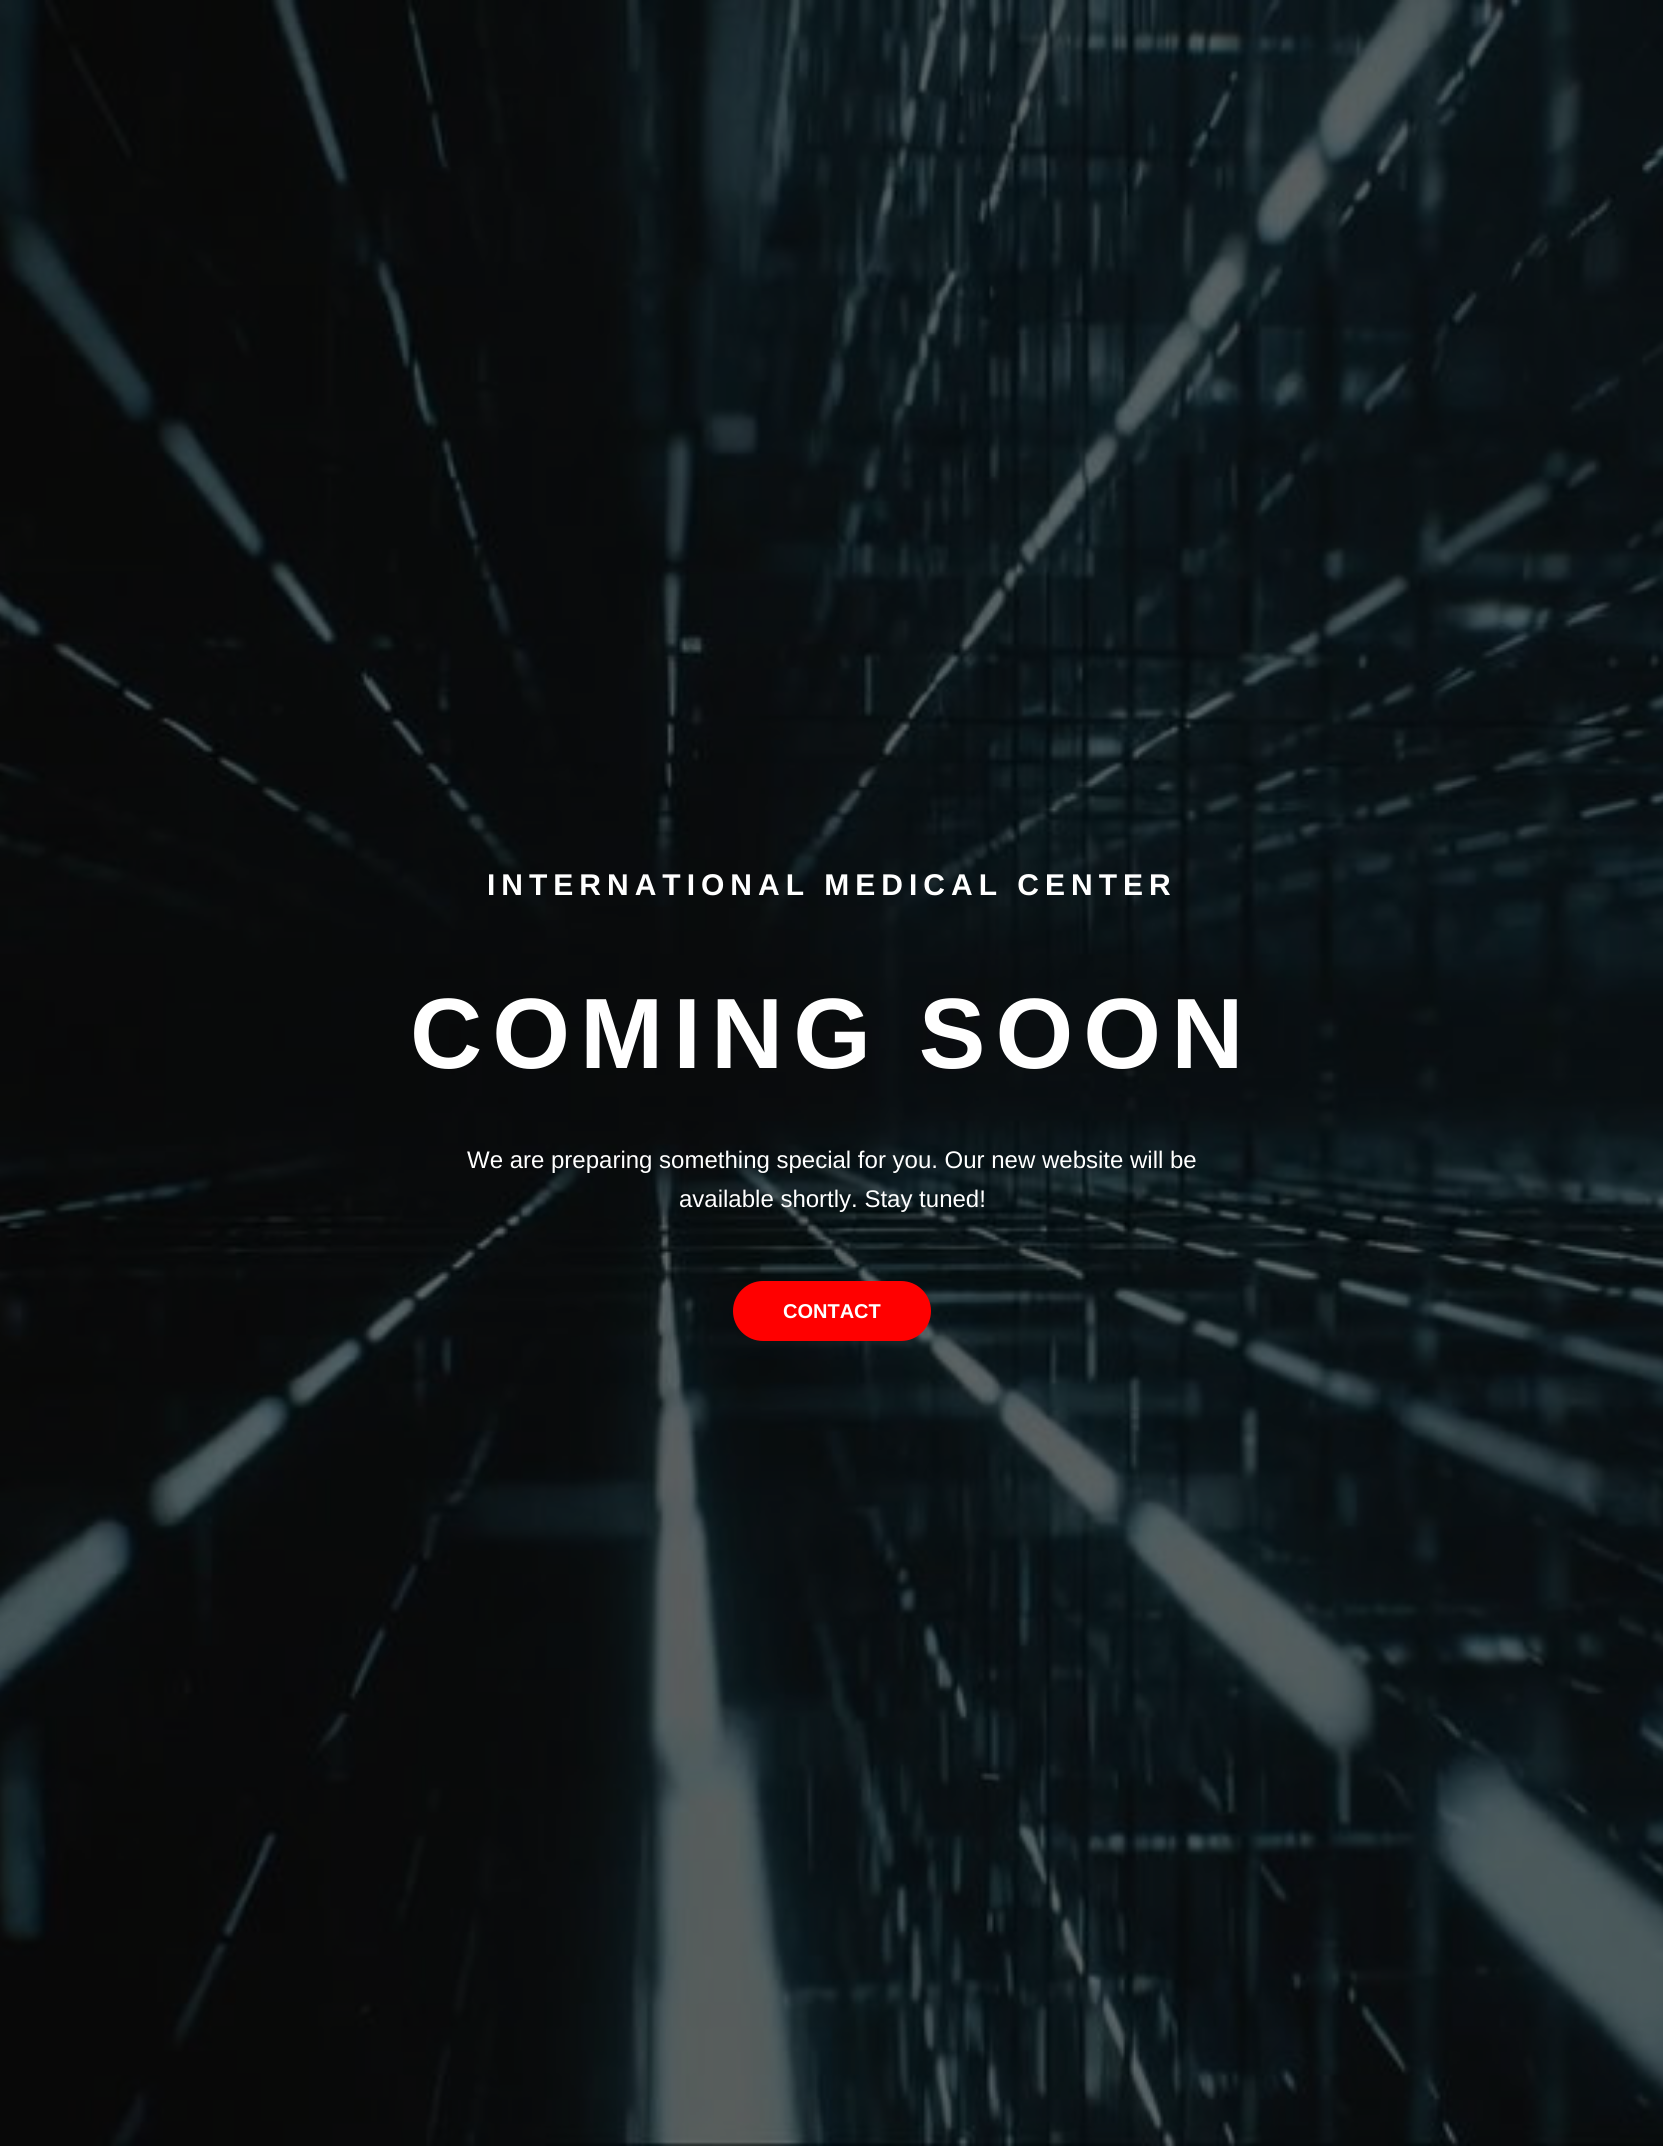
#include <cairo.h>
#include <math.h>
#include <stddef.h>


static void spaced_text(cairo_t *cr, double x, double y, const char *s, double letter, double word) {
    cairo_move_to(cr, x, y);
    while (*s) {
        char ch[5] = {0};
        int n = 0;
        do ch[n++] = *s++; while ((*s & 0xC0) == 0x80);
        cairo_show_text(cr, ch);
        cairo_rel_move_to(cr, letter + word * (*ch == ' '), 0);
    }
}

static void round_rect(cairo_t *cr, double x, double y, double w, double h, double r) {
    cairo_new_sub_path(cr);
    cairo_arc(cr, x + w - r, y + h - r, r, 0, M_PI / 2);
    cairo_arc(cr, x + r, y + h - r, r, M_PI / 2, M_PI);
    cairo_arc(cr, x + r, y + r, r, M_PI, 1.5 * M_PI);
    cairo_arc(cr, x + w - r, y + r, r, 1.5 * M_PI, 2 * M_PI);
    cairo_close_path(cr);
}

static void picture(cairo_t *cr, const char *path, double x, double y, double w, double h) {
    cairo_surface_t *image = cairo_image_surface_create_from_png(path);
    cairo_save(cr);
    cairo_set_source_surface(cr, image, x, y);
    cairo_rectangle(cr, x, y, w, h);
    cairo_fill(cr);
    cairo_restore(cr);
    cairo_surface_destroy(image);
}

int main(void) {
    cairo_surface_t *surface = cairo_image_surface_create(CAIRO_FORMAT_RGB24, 1663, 2146);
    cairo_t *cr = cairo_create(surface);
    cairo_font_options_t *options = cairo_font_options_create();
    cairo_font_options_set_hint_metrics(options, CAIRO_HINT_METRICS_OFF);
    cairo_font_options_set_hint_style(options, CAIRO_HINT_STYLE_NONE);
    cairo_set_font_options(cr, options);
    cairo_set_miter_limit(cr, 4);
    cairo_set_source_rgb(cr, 1, 1, 1);
    cairo_paint(cr);
    picture(cr, "img1.png", 0, 0, 1663, 2146);
    cairo_select_font_face(cr, "Liberation Sans", CAIRO_FONT_SLANT_NORMAL, CAIRO_FONT_WEIGHT_BOLD);
    cairo_set_font_size(cr, 30);
    cairo_set_source_rgb(cr, 1, 1, 1);
    spaced_text(cr, 487, 895, "INTERNATIONAL MEDICAL CENTER", 6, 0);
    cairo_set_font_size(cr, 100);
    spaced_text(cr, 410, 1068, "COMING SOON", 10, 0);
    cairo_select_font_face(cr, "Liberation Sans", CAIRO_FONT_SLANT_NORMAL, CAIRO_FONT_WEIGHT_NORMAL);
    cairo_set_font_size(cr, 24);
    cairo_move_to(cr, 467, 1168);
    cairo_show_text(cr, "We are preparing something special for you. Our new website will be");
    cairo_move_to(cr, 679, 1207);
    cairo_show_text(cr, "available shortly. Stay tuned!");
    cairo_set_source_rgb(cr, 1, 0, 0);
    round_rect(cr, 733, 1281, 198, 60, 30);
    cairo_fill(cr);
    cairo_select_font_face(cr, "Liberation Sans", CAIRO_FONT_SLANT_NORMAL, CAIRO_FONT_WEIGHT_BOLD);
    cairo_set_font_size(cr, 20);
    cairo_set_source_rgb(cr, 1, 1, 1);
    cairo_move_to(cr, 783, 1318);
    cairo_show_text(cr, "CONTACT");
    cairo_surface_write_to_png(surface, "page.png");
    cairo_font_options_destroy(options);
    cairo_destroy(cr);
    cairo_surface_destroy(surface);
    return 0;
}
